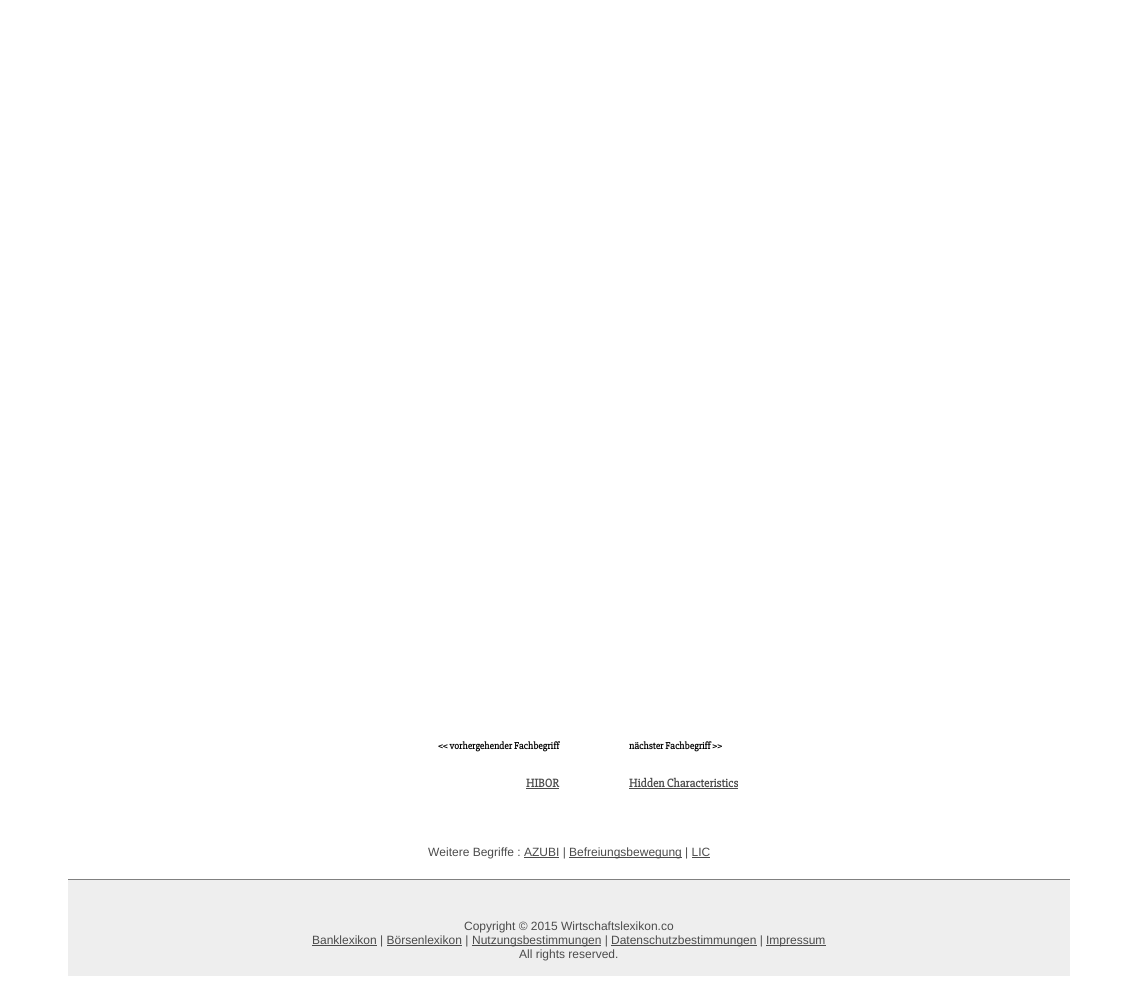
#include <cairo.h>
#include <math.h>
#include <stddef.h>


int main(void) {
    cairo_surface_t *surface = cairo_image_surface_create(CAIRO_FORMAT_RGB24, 1138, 988);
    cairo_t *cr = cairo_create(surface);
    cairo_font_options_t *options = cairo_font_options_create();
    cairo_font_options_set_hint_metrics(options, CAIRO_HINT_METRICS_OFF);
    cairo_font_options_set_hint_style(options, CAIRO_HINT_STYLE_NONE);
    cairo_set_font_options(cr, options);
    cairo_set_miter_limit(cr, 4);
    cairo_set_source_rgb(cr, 1, 1, 1);
    cairo_paint(cr);
    cairo_select_font_face(cr, "Slabo 27px", CAIRO_FONT_SLANT_NORMAL, CAIRO_FONT_WEIGHT_BOLD);
    cairo_set_font_size(cr, 10);
    cairo_set_source_rgb(cr, 0, 0, 0);
    cairo_move_to(cr, 438, 749);
    cairo_show_text(cr, "<< vorhergehender Fachbegriff");
    cairo_move_to(cr, 629, 749);
    cairo_show_text(cr, "nächster Fachbegriff >>");
    cairo_set_font_size(cr, 12);
    cairo_set_source_rgb(cr, 0.294, 0.294, 0.294);
    cairo_move_to(cr, 526, 787);
    cairo_show_text(cr, "HIBOR");
    cairo_rectangle(cr, 526, 788, 33, 1);
    cairo_fill(cr);
    cairo_move_to(cr, 629, 787);
    cairo_show_text(cr, "Hidden Characteristics");
    cairo_rectangle(cr, 629, 788, 109, 1);
    cairo_fill(cr);
    cairo_select_font_face(cr, "Liberation Sans", CAIRO_FONT_SLANT_NORMAL, CAIRO_FONT_WEIGHT_NORMAL);
    cairo_move_to(cr, 428, 856);
    cairo_show_text(cr, "Weitere Begriffe : AZUBI |");
    cairo_rectangle(cr, 569, 857, 113, 1);
    cairo_fill(cr);
    cairo_move_to(cr, 569, 856);
    cairo_show_text(cr, "Befreiungsbewegung | LIC");
    cairo_rectangle(cr, 524, 857, 35, 1);
    cairo_fill(cr);
    cairo_rectangle(cr, 692, 857, 18, 1);
    cairo_fill(cr);
    cairo_set_source_rgb(cr, 0.933, 0.933, 0.933);
    cairo_rectangle(cr, 68, 880, 1002, 96);
    cairo_fill(cr);
    cairo_set_source_rgb(cr, 0.502, 0.502, 0.502);
    cairo_rectangle(cr, 68, 879, 1002, 1);
    cairo_fill(cr);
    cairo_set_source_rgb(cr, 0.294, 0.294, 0.294);
    cairo_move_to(cr, 464, 930);
    cairo_show_text(cr, "Copyright © 2015 Wirtschaftslexikon.co");
    cairo_rectangle(cr, 312, 945, 65, 1);
    cairo_fill(cr);
    cairo_move_to(cr, 312, 944);
    cairo_show_text(cr, "Banklexikon | Börsenlexikon |");
    cairo_rectangle(cr, 472, 945, 129, 1);
    cairo_fill(cr);
    cairo_move_to(cr, 472, 944);
    cairo_show_text(cr, "Nutzungsbestimmungen |");
    cairo_rectangle(cr, 611, 945, 146, 1);
    cairo_fill(cr);
    cairo_move_to(cr, 611, 944);
    cairo_show_text(cr, "Datenschutzbestimmungen |");
    cairo_rectangle(cr, 766, 945, 60, 1);
    cairo_fill(cr);
    cairo_move_to(cr, 766, 944);
    cairo_show_text(cr, "Impressum");
    cairo_rectangle(cr, 387, 945, 75, 1);
    cairo_fill(cr);
    cairo_move_to(cr, 519, 958);
    cairo_show_text(cr, "All rights reserved.");
    cairo_surface_write_to_png(surface, "page.png");
    cairo_font_options_destroy(options);
    cairo_destroy(cr);
    cairo_surface_destroy(surface);
    return 0;
}
